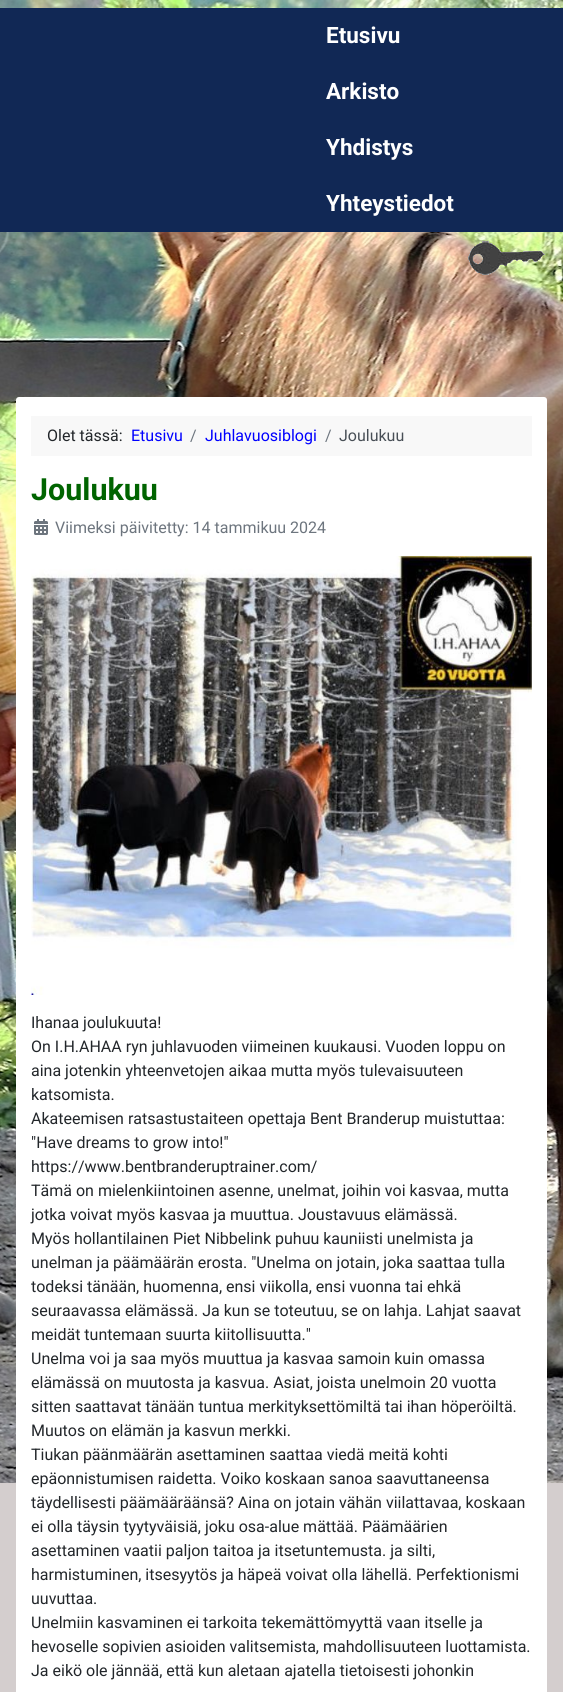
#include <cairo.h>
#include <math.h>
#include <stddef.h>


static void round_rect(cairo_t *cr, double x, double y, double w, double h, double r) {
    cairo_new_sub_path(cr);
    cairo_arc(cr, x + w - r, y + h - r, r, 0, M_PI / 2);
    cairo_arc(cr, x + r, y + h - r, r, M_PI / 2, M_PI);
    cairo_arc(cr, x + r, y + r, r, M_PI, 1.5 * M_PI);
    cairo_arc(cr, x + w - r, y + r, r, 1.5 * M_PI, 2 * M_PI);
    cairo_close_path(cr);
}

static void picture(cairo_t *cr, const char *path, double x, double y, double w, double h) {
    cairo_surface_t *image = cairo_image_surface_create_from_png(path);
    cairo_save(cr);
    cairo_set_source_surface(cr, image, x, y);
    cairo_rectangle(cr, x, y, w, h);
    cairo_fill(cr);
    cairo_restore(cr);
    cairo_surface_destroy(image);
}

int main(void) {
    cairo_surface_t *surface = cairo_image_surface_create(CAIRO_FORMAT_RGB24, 563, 1692);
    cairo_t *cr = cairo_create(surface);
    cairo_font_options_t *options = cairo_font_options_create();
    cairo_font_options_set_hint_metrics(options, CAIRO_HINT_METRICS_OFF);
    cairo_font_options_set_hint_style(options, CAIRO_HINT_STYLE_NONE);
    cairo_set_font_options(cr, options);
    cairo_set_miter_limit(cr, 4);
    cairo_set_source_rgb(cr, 0.831, 0.808, 0.808);
    cairo_paint(cr);
    picture(cr, "img1.png", 0, 397, 563, 1086);
    picture(cr, "img2.png", 0, 0, 563, 397);
    cairo_set_source_rgb(cr, 0.067, 0.157, 0.333);
    cairo_rectangle(cr, 0, 8, 563, 224);
    cairo_fill(cr);
    cairo_select_font_face(cr, "Roboto", CAIRO_FONT_SLANT_NORMAL, CAIRO_FONT_WEIGHT_BOLD);
    cairo_set_font_size(cr, 22.5);
    cairo_set_source_rgb(cr, 1, 1, 1);
    cairo_move_to(cr, 326, 43);
    cairo_show_text(cr, "Etusivu");
    cairo_move_to(cr, 326, 99);
    cairo_show_text(cr, "Arkisto");
    cairo_move_to(cr, 326, 155);
    cairo_show_text(cr, "Yhdistys");
    cairo_move_to(cr, 326, 211);
    cairo_show_text(cr, "Yhteystiedot");
    picture(cr, "img3.png", 468, 241, 77, 34);
    round_rect(cr, 16, 397, 531, 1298, 3);
    cairo_fill(cr);
    cairo_set_source_rgb(cr, 0.969, 0.969, 0.969);
    cairo_rectangle(cr, 31, 416, 501, 40);
    cairo_fill(cr);
    cairo_select_font_face(cr, "Roboto", CAIRO_FONT_SLANT_NORMAL, CAIRO_FONT_WEIGHT_NORMAL);
    cairo_set_font_size(cr, 16);
    cairo_set_source_rgb(cr, 0.133, 0.149, 0.165);
    cairo_move_to(cr, 47, 441);
    cairo_show_text(cr, "Olet tässä:");
    cairo_set_source_rgb(cr, 0, 0, 1);
    cairo_move_to(cr, 131, 441);
    cairo_show_text(cr, "Etusivu");
    cairo_set_source_rgb(cr, 0.427, 0.459, 0.494);
    cairo_move_to(cr, 190, 441);
    cairo_show_text(cr, "/");
    cairo_set_source_rgb(cr, 0, 0, 1);
    cairo_move_to(cr, 205, 441);
    cairo_show_text(cr, "Juhlavuosiblogi");
    cairo_set_source_rgb(cr, 0.427, 0.459, 0.494);
    cairo_move_to(cr, 325, 441);
    cairo_show_text(cr, "/");
    cairo_set_source_rgb(cr, 0.282, 0.31, 0.337);
    cairo_move_to(cr, 339, 441);
    cairo_show_text(cr, "Joulukuu");
    cairo_select_font_face(cr, "Roboto", CAIRO_FONT_SLANT_NORMAL, CAIRO_FONT_WEIGHT_BOLD);
    cairo_set_font_size(cr, 30.5);
    cairo_set_source_rgb(cr, 0, 0.392, 0);
    cairo_move_to(cr, 31, 500);
    cairo_show_text(cr, "Joulukuu");
    picture(cr, "img4.png", 34, 519, 14, 16);
    cairo_select_font_face(cr, "Roboto", CAIRO_FONT_SLANT_NORMAL, CAIRO_FONT_WEIGHT_NORMAL);
    cairo_set_font_size(cr, 16);
    cairo_set_source_rgb(cr, 0.427, 0.459, 0.494);
    cairo_move_to(cr, 55, 533);
    cairo_show_text(cr, "Viimeksi päivitetty: 14 tammikuu 2024");
    picture(cr, "img5.png", 31, 556, 501, 439);
    cairo_set_source_rgb(cr, 0.133, 0.149, 0.165);
    cairo_move_to(cr, 31, 1028);
    cairo_show_text(cr, "Ihanaa joulukuuta!");
    cairo_move_to(cr, 31, 1052);
    cairo_show_text(cr, "On I.H.AHAA ryn juhlavuoden viimeinen kuukausi. Vuoden loppu on");
    cairo_move_to(cr, 31, 1076);
    cairo_show_text(cr, "aina jotenkin yhteenvetojen aikaa mutta myös tulevaisuuteen");
    cairo_move_to(cr, 31, 1100);
    cairo_show_text(cr, "katsomista.");
    cairo_move_to(cr, 31, 1124);
    cairo_show_text(cr, "Akateemisen ratsastustaiteen opettaja Bent Branderup muistuttaa:");
    cairo_move_to(cr, 31, 1148);
    cairo_show_text(cr, "\"Have dreams to grow into!\"");
    cairo_move_to(cr, 31, 1172);
    cairo_show_text(cr, "https://www.bentbranderuptrainer.com/");
    cairo_move_to(cr, 31, 1196);
    cairo_show_text(cr, "Tämä on mielenkiintoinen asenne, unelmat, joihin voi kasvaa, mutta");
    cairo_move_to(cr, 31, 1220);
    cairo_show_text(cr, "jotka voivat myös kasvaa ja muuttua. Joustavuus elämässä.");
    cairo_move_to(cr, 31, 1244);
    cairo_show_text(cr, "Myös hollantilainen Piet Nibbelink puhuu kauniisti unelmista ja");
    cairo_move_to(cr, 31, 1268);
    cairo_show_text(cr, "unelman ja päämäärän erosta. \"Unelma on jotain, joka saattaa tulla");
    cairo_move_to(cr, 31, 1292);
    cairo_show_text(cr, "todeksi tänään, huomenna, ensi viikolla, ensi vuonna tai ehkä");
    cairo_move_to(cr, 31, 1316);
    cairo_show_text(cr, "seuraavassa elämässä. Ja kun se toteutuu, se on lahja. Lahjat saavat");
    cairo_move_to(cr, 31, 1340);
    cairo_show_text(cr, "meidät tuntemaan suurta kiitollisuutta.\"");
    cairo_move_to(cr, 31, 1364);
    cairo_show_text(cr, "Unelma voi ja saa myös muuttua ja kasvaa samoin kuin omassa");
    cairo_move_to(cr, 31, 1388);
    cairo_show_text(cr, "elämässä on muutosta ja kasvua. Asiat, joista unelmoin 20 vuotta");
    cairo_move_to(cr, 31, 1412);
    cairo_show_text(cr, "sitten saattavat tänään tuntua merkityksettömiltä tai ihan höperöiltä.");
    cairo_move_to(cr, 31, 1436);
    cairo_show_text(cr, "Muutos on elämän ja kasvun merkki.");
    cairo_move_to(cr, 31, 1460);
    cairo_show_text(cr, "Tiukan päänmäärän asettaminen saattaa viedä meitä kohti");
    cairo_move_to(cr, 31, 1484);
    cairo_show_text(cr, "epäonnistumisen raidetta. Voiko koskaan sanoa saavuttaneensa");
    cairo_move_to(cr, 31, 1508);
    cairo_show_text(cr, "täydellisesti päämääräänsä? Aina on jotain vähän viilattavaa, koskaan");
    cairo_move_to(cr, 31, 1532);
    cairo_show_text(cr, "ei olla täysin tyytyväisiä, joku osa-alue mättää. Päämäärien");
    cairo_move_to(cr, 31, 1556);
    cairo_show_text(cr, "asettaminen vaatii paljon taitoa ja itsetuntemusta. ja silti,");
    cairo_move_to(cr, 31, 1580);
    cairo_show_text(cr, "harmistuminen, itsesyytös ja häpeä voivat olla lähellä. Perfektionismi");
    cairo_move_to(cr, 31, 1604);
    cairo_show_text(cr, "uuvuttaa.");
    cairo_move_to(cr, 31, 1628);
    cairo_show_text(cr, "Unelmiin kasvaminen ei tarkoita tekemättömyyttä vaan itselle ja");
    cairo_move_to(cr, 31, 1652);
    cairo_show_text(cr, "hevoselle sopivien asioiden valitsemista, mahdollisuuteen luottamista.");
    cairo_move_to(cr, 31, 1676);
    cairo_show_text(cr, "Ja eikö ole jännää, että kun aletaan ajatella tietoisesti johonkin");
    cairo_surface_write_to_png(surface, "page.png");
    cairo_font_options_destroy(options);
    cairo_destroy(cr);
    cairo_surface_destroy(surface);
    return 0;
}
